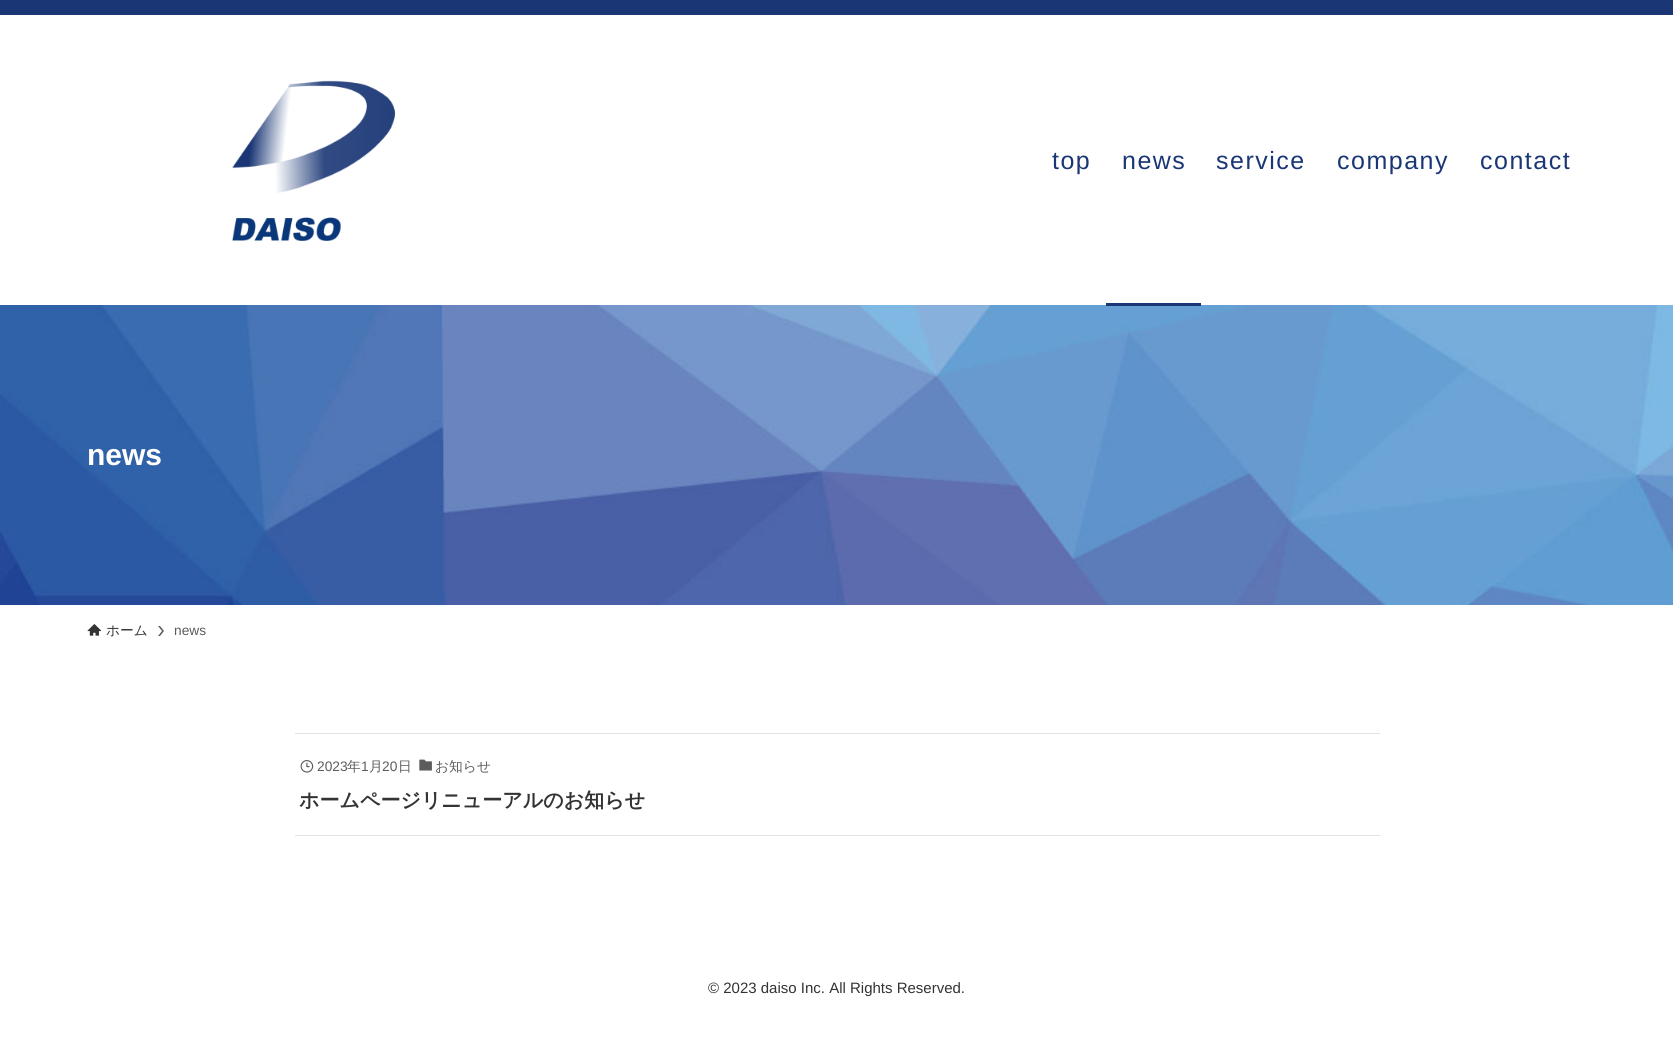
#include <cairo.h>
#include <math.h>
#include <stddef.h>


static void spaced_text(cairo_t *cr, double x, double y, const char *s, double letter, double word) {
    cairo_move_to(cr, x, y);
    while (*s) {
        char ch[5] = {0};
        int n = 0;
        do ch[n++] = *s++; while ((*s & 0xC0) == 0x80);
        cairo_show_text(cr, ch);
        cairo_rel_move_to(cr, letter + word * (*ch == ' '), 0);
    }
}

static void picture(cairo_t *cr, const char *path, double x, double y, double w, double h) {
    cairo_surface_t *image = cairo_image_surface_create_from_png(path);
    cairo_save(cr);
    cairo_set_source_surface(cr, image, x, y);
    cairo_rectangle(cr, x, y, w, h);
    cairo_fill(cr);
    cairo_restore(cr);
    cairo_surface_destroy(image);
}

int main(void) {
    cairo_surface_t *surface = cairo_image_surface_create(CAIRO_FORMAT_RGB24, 1673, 1038);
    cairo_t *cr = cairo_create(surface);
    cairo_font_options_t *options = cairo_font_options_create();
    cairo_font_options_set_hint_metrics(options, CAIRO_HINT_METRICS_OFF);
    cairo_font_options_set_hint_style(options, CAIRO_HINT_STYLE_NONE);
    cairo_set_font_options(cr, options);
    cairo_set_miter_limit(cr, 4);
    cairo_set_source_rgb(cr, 1, 1, 1);
    cairo_paint(cr);
    cairo_set_source_rgb(cr, 0.102, 0.212, 0.459);
    cairo_rectangle(cr, 0, 0, 1673, 15);
    cairo_fill(cr);
    picture(cr, "img1.png", 232, 80, 164, 161);
    cairo_select_font_face(cr, "Liberation Sans", CAIRO_FONT_SLANT_NORMAL, CAIRO_FONT_WEIGHT_NORMAL);
    cairo_set_font_size(cr, 25);
    spaced_text(cr, 1052, 169, "top", 1.5, 0);
    spaced_text(cr, 1122, 169, "news", 1.5, 0);
    picture(cr, "img2.png", 0, 305, 1673, 300);
    cairo_rectangle(cr, 1106, 303, 95, 3);
    cairo_fill(cr);
    spaced_text(cr, 1216, 169, "service", 1.5, 0);
    spaced_text(cr, 1337, 169, "company", 1.5, 0);
    spaced_text(cr, 1480, 169, "contact", 1.5, 0);
    cairo_select_font_face(cr, "Liberation Sans", CAIRO_FONT_SLANT_NORMAL, CAIRO_FONT_WEIGHT_BOLD);
    cairo_set_font_size(cr, 30);
    cairo_set_source_rgb(cr, 1, 1, 1);
    cairo_move_to(cr, 87, 465);
    cairo_show_text(cr, "news");
    picture(cr, "img3.png", 87, 624, 15, 12);
    cairo_select_font_face(cr, "WenQuanYi Zen Hei Medium", CAIRO_FONT_SLANT_NORMAL, CAIRO_FONT_WEIGHT_NORMAL);
    cairo_set_font_size(cr, 13.75);
    cairo_set_source_rgb(cr, 0.2, 0.2, 0.2);
    cairo_move_to(cr, 106, 635);
    cairo_show_text(cr, "ホーム");
    cairo_set_source_rgb(cr, 0.361, 0.361, 0.361);
    cairo_new_path(cr);
    cairo_move_to(cr, 160, 626);
    cairo_line_to(cr, 158, 626);
    cairo_line_to(cr, 162, 631);
    cairo_line_to(cr, 158, 636);
    cairo_line_to(cr, 160, 636);
    cairo_line_to(cr, 164, 631);
    cairo_close_path(cr);
    cairo_fill(cr);
    cairo_select_font_face(cr, "Liberation Sans", CAIRO_FONT_SLANT_NORMAL, CAIRO_FONT_WEIGHT_NORMAL);
    cairo_move_to(cr, 174, 635);
    cairo_show_text(cr, "news");
    cairo_set_source_rgb(cr, 0.89, 0.89, 0.89);
    cairo_rectangle(cr, 295, 733, 1085, 1);
    cairo_fill(cr);
    cairo_rectangle(cr, 295, 835, 1085, 1);
    cairo_fill(cr);
    picture(cr, "img4.png", 300, 760, 14, 13);
    cairo_set_source_rgb(cr, 0.361, 0.361, 0.361);
    cairo_move_to(cr, 317, 771);
    cairo_show_text(cr, "2023");
    cairo_select_font_face(cr, "WenQuanYi Zen Hei Medium", CAIRO_FONT_SLANT_NORMAL, CAIRO_FONT_WEIGHT_NORMAL);
    cairo_move_to(cr, 347, 771);
    cairo_show_text(cr, "年");
    cairo_select_font_face(cr, "Liberation Sans", CAIRO_FONT_SLANT_NORMAL, CAIRO_FONT_WEIGHT_NORMAL);
    cairo_move_to(cr, 361, 771);
    cairo_show_text(cr, "1");
    cairo_select_font_face(cr, "WenQuanYi Zen Hei Medium", CAIRO_FONT_SLANT_NORMAL, CAIRO_FONT_WEIGHT_NORMAL);
    cairo_move_to(cr, 369, 771);
    cairo_show_text(cr, "月");
    cairo_select_font_face(cr, "Liberation Sans", CAIRO_FONT_SLANT_NORMAL, CAIRO_FONT_WEIGHT_NORMAL);
    cairo_move_to(cr, 382, 771);
    cairo_show_text(cr, "20");
    cairo_select_font_face(cr, "WenQuanYi Zen Hei Medium", CAIRO_FONT_SLANT_NORMAL, CAIRO_FONT_WEIGHT_NORMAL);
    cairo_move_to(cr, 398, 771);
    cairo_show_text(cr, "日");
    picture(cr, "img5.png", 419, 759, 13, 12);
    cairo_move_to(cr, 435, 771);
    cairo_show_text(cr, "お知らせ");
    cairo_select_font_face(cr, "WenQuanYi Zen Hei", CAIRO_FONT_SLANT_NORMAL, CAIRO_FONT_WEIGHT_BOLD);
    cairo_set_font_size(cr, 20);
    cairo_set_source_rgb(cr, 0.2, 0.2, 0.2);
    cairo_move_to(cr, 299, 807);
    cairo_show_text(cr, "ホームページリニューアルのお知らせ");
    cairo_select_font_face(cr, "Liberation Sans", CAIRO_FONT_SLANT_NORMAL, CAIRO_FONT_WEIGHT_NORMAL);
    cairo_set_font_size(cr, 15);
    cairo_move_to(cr, 708, 993);
    cairo_show_text(cr, "© 2023 daiso Inc. All Rights Reserved.");
    cairo_surface_write_to_png(surface, "page.png");
    cairo_font_options_destroy(options);
    cairo_destroy(cr);
    cairo_surface_destroy(surface);
    return 0;
}
